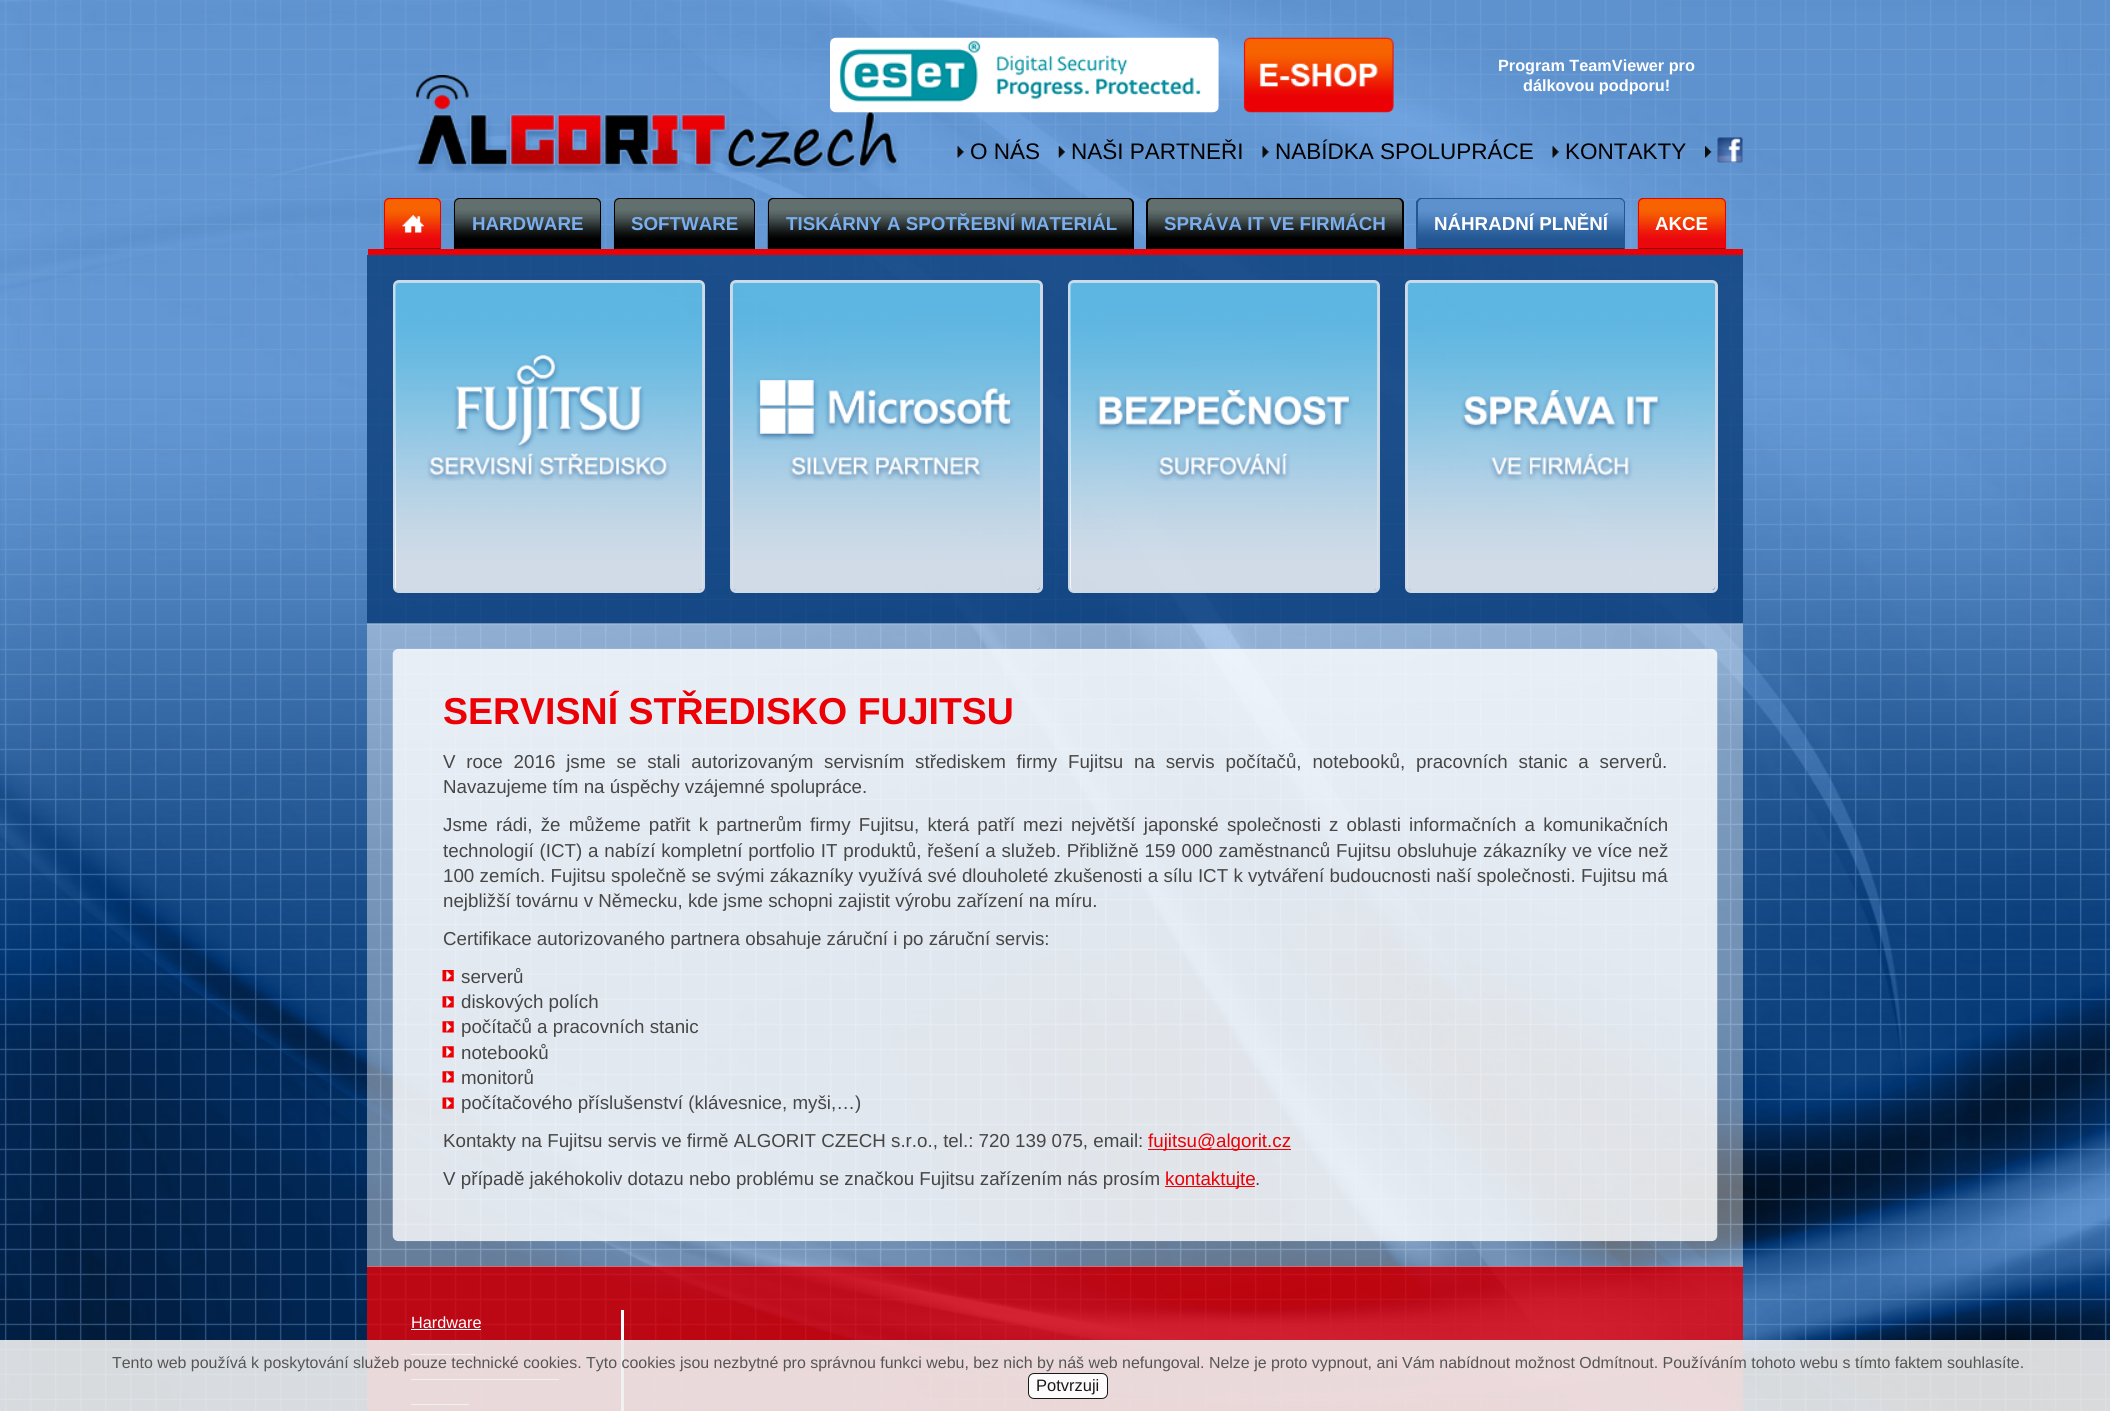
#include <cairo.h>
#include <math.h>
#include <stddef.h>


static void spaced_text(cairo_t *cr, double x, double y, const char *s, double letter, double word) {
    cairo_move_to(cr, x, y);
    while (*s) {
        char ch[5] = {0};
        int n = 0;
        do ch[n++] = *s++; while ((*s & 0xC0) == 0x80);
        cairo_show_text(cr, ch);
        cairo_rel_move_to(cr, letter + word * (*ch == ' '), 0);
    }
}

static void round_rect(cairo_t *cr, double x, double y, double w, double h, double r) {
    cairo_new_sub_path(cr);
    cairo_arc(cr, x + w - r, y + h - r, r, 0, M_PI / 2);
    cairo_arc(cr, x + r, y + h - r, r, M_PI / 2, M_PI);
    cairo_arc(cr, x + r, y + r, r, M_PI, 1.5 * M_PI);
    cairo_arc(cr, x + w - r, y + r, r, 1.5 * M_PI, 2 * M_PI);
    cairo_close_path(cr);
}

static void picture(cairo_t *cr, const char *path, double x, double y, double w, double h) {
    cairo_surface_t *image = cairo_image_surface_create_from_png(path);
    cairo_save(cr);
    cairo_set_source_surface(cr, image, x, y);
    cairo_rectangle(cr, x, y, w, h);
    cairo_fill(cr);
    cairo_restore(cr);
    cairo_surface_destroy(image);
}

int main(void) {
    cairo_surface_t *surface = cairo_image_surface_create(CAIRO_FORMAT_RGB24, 2110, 1411);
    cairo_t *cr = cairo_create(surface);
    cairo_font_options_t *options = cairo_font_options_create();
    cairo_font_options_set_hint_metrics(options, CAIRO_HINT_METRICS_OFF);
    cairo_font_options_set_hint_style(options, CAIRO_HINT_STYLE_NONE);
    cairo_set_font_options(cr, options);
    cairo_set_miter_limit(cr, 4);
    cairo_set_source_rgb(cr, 1, 1, 1);
    cairo_paint(cr);
    picture(cr, "img1.png", 0, 0, 2110, 1411);
    picture(cr, "img2.png", 0, 0, 2110, 1411);
    picture(cr, "img5.png", 415, 75, 484, 98);
    picture(cr, "img3.png", 830, 37, 389, 76);
    picture(cr, "img4.png", 1243, 37, 151, 76);
    cairo_select_font_face(cr, "Liberation Sans", CAIRO_FONT_SLANT_NORMAL, CAIRO_FONT_WEIGHT_BOLD);
    cairo_set_font_size(cr, 16.25);
    cairo_set_source_rgb(cr, 1, 1, 1);
    cairo_move_to(cr, 1498, 71);
    cairo_show_text(cr, "Program TeamViewer pro");
    cairo_move_to(cr, 1523, 91);
    cairo_show_text(cr, "dálkovou podporu!");
    picture(cr, "img6.png", 957, 146, 7, 12);
    cairo_select_font_face(cr, "Liberation Sans", CAIRO_FONT_SLANT_NORMAL, CAIRO_FONT_WEIGHT_NORMAL);
    cairo_set_font_size(cr, 22.5);
    cairo_set_source_rgb(cr, 0, 0, 0);
    cairo_move_to(cr, 970, 159);
    cairo_show_text(cr, "O NÁS");
    picture(cr, "img7.png", 1058, 146, 7, 12);
    cairo_move_to(cr, 1071, 159);
    cairo_show_text(cr, "NAŠI PARTNEŘI");
    picture(cr, "img8.png", 1262, 146, 7, 12);
    cairo_move_to(cr, 1275, 159);
    cairo_show_text(cr, "NABÍDKA SPOLUPRÁCE");
    picture(cr, "img9.png", 1552, 146, 7, 12);
    cairo_move_to(cr, 1565, 159);
    cairo_show_text(cr, "KONTAKTY");
    picture(cr, "img10.png", 1705, 146, 7, 12);
    picture(cr, "img11.png", 1717, 137, 26, 26);
    cairo_set_source_rgb(cr, 0.918, 0, 0.02);
    cairo_rectangle(cr, 368, 249, 1375, 6);
    cairo_fill(cr);
    cairo_set_source_rgb(cr, 0, 0, 0);
    cairo_new_path(cr);
    cairo_move_to(cr, 390, 198);
    cairo_line_to(cr, 435, 198);
    cairo_curve_to(cr, 438.5, 198, 441, 200.5, 441, 204);
    cairo_line_to(cr, 441, 249);
    cairo_line_to(cr, 384, 249);
    cairo_line_to(cr, 384, 204);
    cairo_curve_to(cr, 384, 200.5, 386.5, 198, 390, 198);
    cairo_close_path(cr);
    cairo_fill(cr);
    picture(cr, "img12.png", 383, 198, 59, 51);
    cairo_set_source_rgb(cr, 0.918, 0, 0.02);
    cairo_set_fill_rule(cr, CAIRO_FILL_RULE_EVEN_ODD);
    cairo_new_path(cr);
    cairo_move_to(cr, 390, 198);
    cairo_line_to(cr, 435, 198);
    cairo_curve_to(cr, 438, 198, 441, 200, 441, 204);
    cairo_line_to(cr, 441, 249);
    cairo_line_to(cr, 384, 249);
    cairo_line_to(cr, 384, 204);
    cairo_curve_to(cr, 384, 200, 387, 198, 390, 198);
    cairo_close_path(cr);
    cairo_move_to(cr, 390, 199);
    cairo_line_to(cr, 435, 199);
    cairo_curve_to(cr, 438, 199, 440, 201, 440, 204);
    cairo_line_to(cr, 440, 249);
    cairo_line_to(cr, 385, 249);
    cairo_line_to(cr, 385, 204);
    cairo_curve_to(cr, 385, 201, 387, 199, 390, 199);
    cairo_close_path(cr);
    cairo_fill(cr);
    picture(cr, "img13.png", 402, 215, 22, 18);
    cairo_set_source_rgb(cr, 0, 0, 0);
    cairo_new_path(cr);
    cairo_move_to(cr, 460, 198);
    cairo_line_to(cr, 595, 198);
    cairo_curve_to(cr, 598.5, 198, 601, 200.5, 601, 204);
    cairo_line_to(cr, 601, 249);
    cairo_line_to(cr, 454, 249);
    cairo_line_to(cr, 454, 204);
    cairo_curve_to(cr, 454, 200.5, 456.5, 198, 460, 198);
    cairo_close_path(cr);
    cairo_fill(cr);
    picture(cr, "img14.png", 453, 198, 149, 51);
    cairo_new_path(cr);
    cairo_move_to(cr, 460, 198);
    cairo_line_to(cr, 595, 198);
    cairo_curve_to(cr, 598, 198, 601, 200, 601, 204);
    cairo_line_to(cr, 601, 249);
    cairo_line_to(cr, 454, 249);
    cairo_line_to(cr, 454, 204);
    cairo_curve_to(cr, 454, 200, 457, 198, 460, 198);
    cairo_close_path(cr);
    cairo_move_to(cr, 460, 199);
    cairo_line_to(cr, 595, 199);
    cairo_curve_to(cr, 598, 199, 600, 201, 600, 204);
    cairo_line_to(cr, 600, 249);
    cairo_line_to(cr, 455, 249);
    cairo_line_to(cr, 455, 204);
    cairo_curve_to(cr, 455, 201, 457, 199, 460, 199);
    cairo_close_path(cr);
    cairo_fill(cr);
    cairo_select_font_face(cr, "Liberation Sans", CAIRO_FONT_SLANT_NORMAL, CAIRO_FONT_WEIGHT_BOLD);
    cairo_set_font_size(cr, 18.75);
    cairo_set_source_rgb(cr, 0.478, 0.682, 0.922);
    cairo_move_to(cr, 472, 230);
    cairo_show_text(cr, "HARDWARE");
    cairo_set_source_rgb(cr, 0, 0, 0);
    cairo_new_path(cr);
    cairo_move_to(cr, 620, 198);
    cairo_line_to(cr, 749, 198);
    cairo_curve_to(cr, 752.5, 198, 755, 200.5, 755, 204);
    cairo_line_to(cr, 755, 249);
    cairo_line_to(cr, 614, 249);
    cairo_line_to(cr, 614, 204);
    cairo_curve_to(cr, 614, 200.5, 616.5, 198, 620, 198);
    cairo_close_path(cr);
    cairo_fill(cr);
    picture(cr, "img15.png", 613, 198, 142, 51);
    cairo_new_path(cr);
    cairo_move_to(cr, 620, 198);
    cairo_line_to(cr, 749, 198);
    cairo_curve_to(cr, 752, 198, 755, 200, 755, 204);
    cairo_line_to(cr, 755, 249);
    cairo_line_to(cr, 614, 249);
    cairo_line_to(cr, 614, 204);
    cairo_curve_to(cr, 614, 200, 617, 198, 620, 198);
    cairo_close_path(cr);
    cairo_move_to(cr, 620, 199);
    cairo_line_to(cr, 749, 199);
    cairo_curve_to(cr, 752, 199, 754, 201, 754, 204);
    cairo_line_to(cr, 754, 249);
    cairo_line_to(cr, 615, 249);
    cairo_line_to(cr, 615, 204);
    cairo_curve_to(cr, 615, 201, 617, 199, 620, 199);
    cairo_close_path(cr);
    cairo_fill(cr);
    cairo_set_source_rgb(cr, 0.478, 0.682, 0.922);
    cairo_move_to(cr, 631, 230);
    cairo_show_text(cr, "SOFTWARE");
    cairo_set_source_rgb(cr, 0, 0, 0);
    cairo_new_path(cr);
    cairo_move_to(cr, 774, 198);
    cairo_line_to(cr, 1128, 198);
    cairo_curve_to(cr, 1131.5, 198, 1134, 200.5, 1134, 204);
    cairo_line_to(cr, 1134, 249);
    cairo_line_to(cr, 768, 249);
    cairo_line_to(cr, 768, 204);
    cairo_curve_to(cr, 768, 200.5, 770.5, 198, 774, 198);
    cairo_close_path(cr);
    cairo_fill(cr);
    picture(cr, "img16.png", 767, 198, 367, 51);
    cairo_new_path(cr);
    cairo_move_to(cr, 774, 198);
    cairo_line_to(cr, 1128, 198);
    cairo_curve_to(cr, 1131, 198, 1134, 200, 1134, 204);
    cairo_line_to(cr, 1134, 249);
    cairo_line_to(cr, 768, 249);
    cairo_line_to(cr, 768, 204);
    cairo_curve_to(cr, 768, 200, 770, 198, 774, 198);
    cairo_close_path(cr);
    cairo_move_to(cr, 774, 199);
    cairo_line_to(cr, 1128, 199);
    cairo_curve_to(cr, 1130, 199, 1132, 201, 1132, 204);
    cairo_line_to(cr, 1132, 249);
    cairo_line_to(cr, 769, 249);
    cairo_line_to(cr, 769, 204);
    cairo_curve_to(cr, 769, 201, 771, 199, 774, 199);
    cairo_close_path(cr);
    cairo_fill(cr);
    cairo_set_source_rgb(cr, 0.478, 0.682, 0.922);
    cairo_move_to(cr, 786, 230);
    cairo_show_text(cr, "TISKÁRNY A SPOTŘEBNÍ MATERIÁL");
    cairo_set_source_rgb(cr, 0, 0, 0);
    cairo_new_path(cr);
    cairo_move_to(cr, 1152, 198);
    cairo_line_to(cr, 1398, 198);
    cairo_curve_to(cr, 1401.5, 198, 1404, 200.5, 1404, 204);
    cairo_line_to(cr, 1404, 249);
    cairo_line_to(cr, 1146, 249);
    cairo_line_to(cr, 1146, 204);
    cairo_curve_to(cr, 1146, 200.5, 1148.5, 198, 1152, 198);
    cairo_close_path(cr);
    cairo_fill(cr);
    picture(cr, "img17.png", 1146, 198, 258, 39);
    cairo_new_path(cr);
    cairo_move_to(cr, 1152, 198);
    cairo_line_to(cr, 1398, 198);
    cairo_curve_to(cr, 1401, 198, 1404, 200, 1404, 204);
    cairo_line_to(cr, 1404, 249);
    cairo_line_to(cr, 1146, 249);
    cairo_line_to(cr, 1146, 204);
    cairo_curve_to(cr, 1146, 200, 1149, 198, 1152, 198);
    cairo_close_path(cr);
    cairo_move_to(cr, 1152, 199);
    cairo_line_to(cr, 1398, 199);
    cairo_curve_to(cr, 1400, 199, 1402, 201, 1402, 204);
    cairo_line_to(cr, 1402, 249);
    cairo_line_to(cr, 1148, 249);
    cairo_line_to(cr, 1148, 204);
    cairo_curve_to(cr, 1148, 201, 1150, 199, 1152, 199);
    cairo_close_path(cr);
    cairo_fill(cr);
    cairo_set_source_rgb(cr, 0.478, 0.682, 0.922);
    cairo_move_to(cr, 1164, 230);
    cairo_show_text(cr, "SPRÁVA IT VE FIRMÁCH");
    cairo_set_source_rgb(cr, 0, 0, 0);
    cairo_new_path(cr);
    cairo_move_to(cr, 1422, 198);
    cairo_line_to(cr, 1619, 198);
    cairo_curve_to(cr, 1622.5, 198, 1625, 200.5, 1625, 204);
    cairo_line_to(cr, 1625, 249);
    cairo_line_to(cr, 1416, 249);
    cairo_line_to(cr, 1416, 204);
    cairo_curve_to(cr, 1416, 200.5, 1418.5, 198, 1422, 198);
    cairo_close_path(cr);
    cairo_fill(cr);
    picture(cr, "img18.png", 1416, 198, 209, 51);
    cairo_set_source_rgb(cr, 0.137, 0.341, 0.58);
    cairo_new_path(cr);
    cairo_move_to(cr, 1422, 198);
    cairo_line_to(cr, 1619, 198);
    cairo_curve_to(cr, 1622, 198, 1625, 200, 1625, 204);
    cairo_line_to(cr, 1625, 249);
    cairo_line_to(cr, 1416, 249);
    cairo_line_to(cr, 1416, 204);
    cairo_curve_to(cr, 1416, 200, 1419, 198, 1422, 198);
    cairo_close_path(cr);
    cairo_move_to(cr, 1422, 199);
    cairo_line_to(cr, 1619, 199);
    cairo_curve_to(cr, 1622, 199, 1624, 201, 1624, 204);
    cairo_line_to(cr, 1624, 249);
    cairo_line_to(cr, 1418, 249);
    cairo_line_to(cr, 1418, 204);
    cairo_curve_to(cr, 1418, 201, 1420, 199, 1422, 199);
    cairo_close_path(cr);
    cairo_fill(cr);
    cairo_set_source_rgb(cr, 1, 1, 1);
    cairo_move_to(cr, 1434, 230);
    cairo_show_text(cr, "NÁHRADNÍ PLNĚNÍ");
    cairo_set_source_rgb(cr, 0, 0, 0);
    cairo_new_path(cr);
    cairo_move_to(cr, 1644, 198);
    cairo_line_to(cr, 1720, 198);
    cairo_curve_to(cr, 1723.5, 198, 1726, 200.5, 1726, 204);
    cairo_line_to(cr, 1726, 249);
    cairo_line_to(cr, 1638, 249);
    cairo_line_to(cr, 1638, 204);
    cairo_curve_to(cr, 1638, 200.5, 1640.5, 198, 1644, 198);
    cairo_close_path(cr);
    cairo_fill(cr);
    picture(cr, "img19.png", 1637, 198, 90, 51);
    cairo_set_source_rgb(cr, 0.918, 0, 0.02);
    cairo_new_path(cr);
    cairo_move_to(cr, 1644, 198);
    cairo_line_to(cr, 1720, 198);
    cairo_curve_to(cr, 1723, 198, 1726, 200, 1726, 204);
    cairo_line_to(cr, 1726, 249);
    cairo_line_to(cr, 1638, 249);
    cairo_line_to(cr, 1638, 204);
    cairo_curve_to(cr, 1638, 200, 1640, 198, 1644, 198);
    cairo_close_path(cr);
    cairo_move_to(cr, 1644, 199);
    cairo_line_to(cr, 1720, 199);
    cairo_curve_to(cr, 1723, 199, 1725, 201, 1725, 204);
    cairo_line_to(cr, 1725, 249);
    cairo_line_to(cr, 1639, 249);
    cairo_line_to(cr, 1639, 204);
    cairo_curve_to(cr, 1639, 201, 1641, 199, 1644, 199);
    cairo_close_path(cr);
    cairo_fill(cr);
    cairo_set_source_rgb(cr, 1, 1, 1);
    cairo_move_to(cr, 1655, 230);
    cairo_show_text(cr, "AKCE");
    cairo_set_source_rgba(cr, 0.035, 0.239, 0.478, 0.8);
    cairo_rectangle(cr, 367, 255, 1376, 369);
    cairo_fill(cr);
    round_rect(cr, 394.5, 281.5, 309, 310, 4.5);
    cairo_set_source_rgb(cr, 0.812, 0.855, 0.902);
    cairo_set_line_width(cr, 3);
    cairo_stroke(cr);
    picture(cr, "img20.png", 395, 282, 308, 308);
    picture(cr, "img21.png", 427, 354, 243, 127);
    round_rect(cr, 731.5, 281.5, 310, 310, 4.5);
    cairo_stroke(cr);
    picture(cr, "img22.png", 732, 282, 308, 308);
    picture(cr, "img23.png", 756, 378, 258, 103);
    round_rect(cr, 1069.5, 281.5, 309, 310, 4.5);
    cairo_stroke(cr);
    picture(cr, "img24.png", 1070, 282, 308, 308);
    picture(cr, "img25.png", 1095, 389, 258, 92);
    round_rect(cr, 1406.5, 281.5, 310, 310, 4.5);
    cairo_stroke(cr);
    picture(cr, "img26.png", 1407, 282, 308, 308);
    picture(cr, "img27.png", 1461, 389, 200, 92);
    cairo_set_source_rgba(cr, 0.918, 0, 0.02, 0.8);
    cairo_rectangle(cr, 367, 1266, 1376, 145);
    cairo_fill(cr);
    cairo_set_source_rgba(cr, 1, 1, 1, 0.4);
    cairo_rectangle(cr, 367, 623, 1376, 644);
    cairo_fill(cr);
    picture(cr, "img28.png", 392, 648, 1326, 594);
    cairo_set_font_size(cr, 37.5);
    cairo_set_source_rgb(cr, 0.918, 0, 0.02);
    cairo_move_to(cr, 443, 724);
    cairo_show_text(cr, "SERVISNÍ STŘEDISKO FUJITSU");
    cairo_select_font_face(cr, "Liberation Sans", CAIRO_FONT_SLANT_NORMAL, CAIRO_FONT_WEIGHT_NORMAL);
    cairo_set_font_size(cr, 18.75);
    cairo_set_source_rgb(cr, 0.275, 0.275, 0.275);
    spaced_text(cr, 443, 768, "V roce 2016 jsme se stali autorizovaným servisním střediskem firmy Fujitsu na servis počítačů, notebooků, pracovních stanic a serverů.", 0, 5.6);
    cairo_move_to(cr, 443, 793);
    cairo_show_text(cr, "Navazujeme tím na úspěchy vzájemné spolupráce.");
    spaced_text(cr, 443, 831, "Jsme rádi, že můžeme patřit k partnerům firmy Fujitsu, která patří mezi největší japonské společnosti z oblasti informačních a komunikačních", 0, 3);
    spaced_text(cr, 443, 857, "technologií (ICT) a nabízí kompletní portfolio IT produktů, řešení a služeb. Přibližně 159 000 zaměstnanců Fujitsu obsluhuje zákazníky ve více než", 0, 0.6);
    spaced_text(cr, 443, 882, "100 zemích. Fujitsu společně se svými zákazníky využívá své dlouholeté zkušenosti a sílu ICT k vytváření budoucnosti naší společnosti. Fujitsu má", 0, 0.1);
    cairo_move_to(cr, 443, 907);
    cairo_show_text(cr, "nejbližší továrnu v Německu, kde jsme schopni zajistit výrobu zařízení na míru.");
    cairo_move_to(cr, 443, 945);
    cairo_show_text(cr, "Certifikace autorizovaného partnera obsahuje záruční i po záruční servis:");
    picture(cr, "img29.png", 442, 970, 12, 12);
    cairo_move_to(cr, 461, 983);
    cairo_show_text(cr, "serverů");
    picture(cr, "img30.png", 442, 996, 12, 12);
    cairo_move_to(cr, 461, 1008);
    cairo_show_text(cr, "diskových polích");
    picture(cr, "img31.png", 442, 1021, 12, 12);
    cairo_move_to(cr, 461, 1033);
    cairo_show_text(cr, "počítačů a pracovních stanic");
    picture(cr, "img30.png", 442, 1046, 12, 12);
    cairo_move_to(cr, 461, 1059);
    cairo_show_text(cr, "notebooků");
    picture(cr, "img32.png", 442, 1071, 12, 12);
    cairo_move_to(cr, 461, 1084);
    cairo_show_text(cr, "monitorů");
    picture(cr, "img33.png", 442, 1097, 12, 12);
    cairo_move_to(cr, 461, 1109);
    cairo_show_text(cr, "počítačového příslušenství (klávesnice, myši,…)");
    cairo_move_to(cr, 443, 1147);
    cairo_show_text(cr, "Kontakty na Fujitsu servis ve firmě ALGORIT CZECH s.r.o., tel.: 720 139 075, email:");
    cairo_set_source_rgb(cr, 0.918, 0, 0.02);
    cairo_rectangle(cr, 1148, 1149, 143, 1);
    cairo_fill(cr);
    cairo_move_to(cr, 1148, 1147);
    cairo_show_text(cr, "fujitsu@algorit.cz");
    cairo_set_source_rgb(cr, 0.275, 0.275, 0.275);
    cairo_move_to(cr, 443, 1185);
    cairo_show_text(cr, "V případě jakéhokoliv dotazu nebo problému se značkou Fujitsu zařízením nás prosím");
    cairo_set_source_rgb(cr, 0.918, 0, 0.02);
    cairo_rectangle(cr, 1165, 1186, 90, 1);
    cairo_fill(cr);
    cairo_move_to(cr, 1165, 1185);
    cairo_show_text(cr, "kontaktujte");
    cairo_set_source_rgb(cr, 0.275, 0.275, 0.275);
    cairo_move_to(cr, 1255, 1185);
    cairo_show_text(cr, ".");
    cairo_set_font_size(cr, 16.25);
    cairo_set_source_rgb(cr, 1, 1, 1);
    cairo_move_to(cr, 411, 1328);
    cairo_show_text(cr, "Hardware");
    cairo_rectangle(cr, 411, 1329, 70, 1);
    cairo_fill(cr);
    cairo_rectangle(cr, 411, 1354, 64, 1);
    cairo_fill(cr);
    cairo_rectangle(cr, 411, 1379, 148, 1);
    cairo_fill(cr);
    cairo_rectangle(cr, 411, 1404, 58, 1);
    cairo_fill(cr);
    cairo_rectangle(cr, 621, 1310, 3, 101);
    cairo_fill(cr);
    cairo_set_source_rgba(cr, 0.941, 0.941, 0.941, 0.9);
    cairo_rectangle(cr, 0, 1340, 2110, 71);
    cairo_fill(cr);
    cairo_set_font_size(cr, 15.94);
    cairo_set_source_rgb(cr, 0.337, 0.333, 0.333);
    cairo_move_to(cr, 112, 1368);
    cairo_show_text(cr, "Tento web používá k poskytování služeb pouze technické cookies. Tyto cookies jsou nezbytné pro správnou funkci webu, bez nich by náš web nefungoval. Nelze je proto vypnout, ani Vám nabídnout možnost Odmítnout. Používáním tohoto webu s tímto faktem souhlasíte.");
    cairo_set_source_rgb(cr, 0.992, 0.984, 0.984);
    round_rect(cr, 1028, 1373, 80, 26, 6);
    cairo_fill(cr);
    round_rect(cr, 1028.5, 1373.5, 79, 25, 5.5);
    cairo_set_source_rgba(cr, 0, 0, 0, 0.9);
    cairo_set_line_width(cr, 1);
    cairo_stroke(cr);
    cairo_set_font_size(cr, 16.5);
    cairo_set_source_rgb(cr, 0.098, 0.098, 0.098);
    cairo_move_to(cr, 1036, 1391);
    cairo_show_text(cr, "Potvrzuji");
    cairo_surface_write_to_png(surface, "page.png");
    cairo_font_options_destroy(options);
    cairo_destroy(cr);
    cairo_surface_destroy(surface);
    return 0;
}
